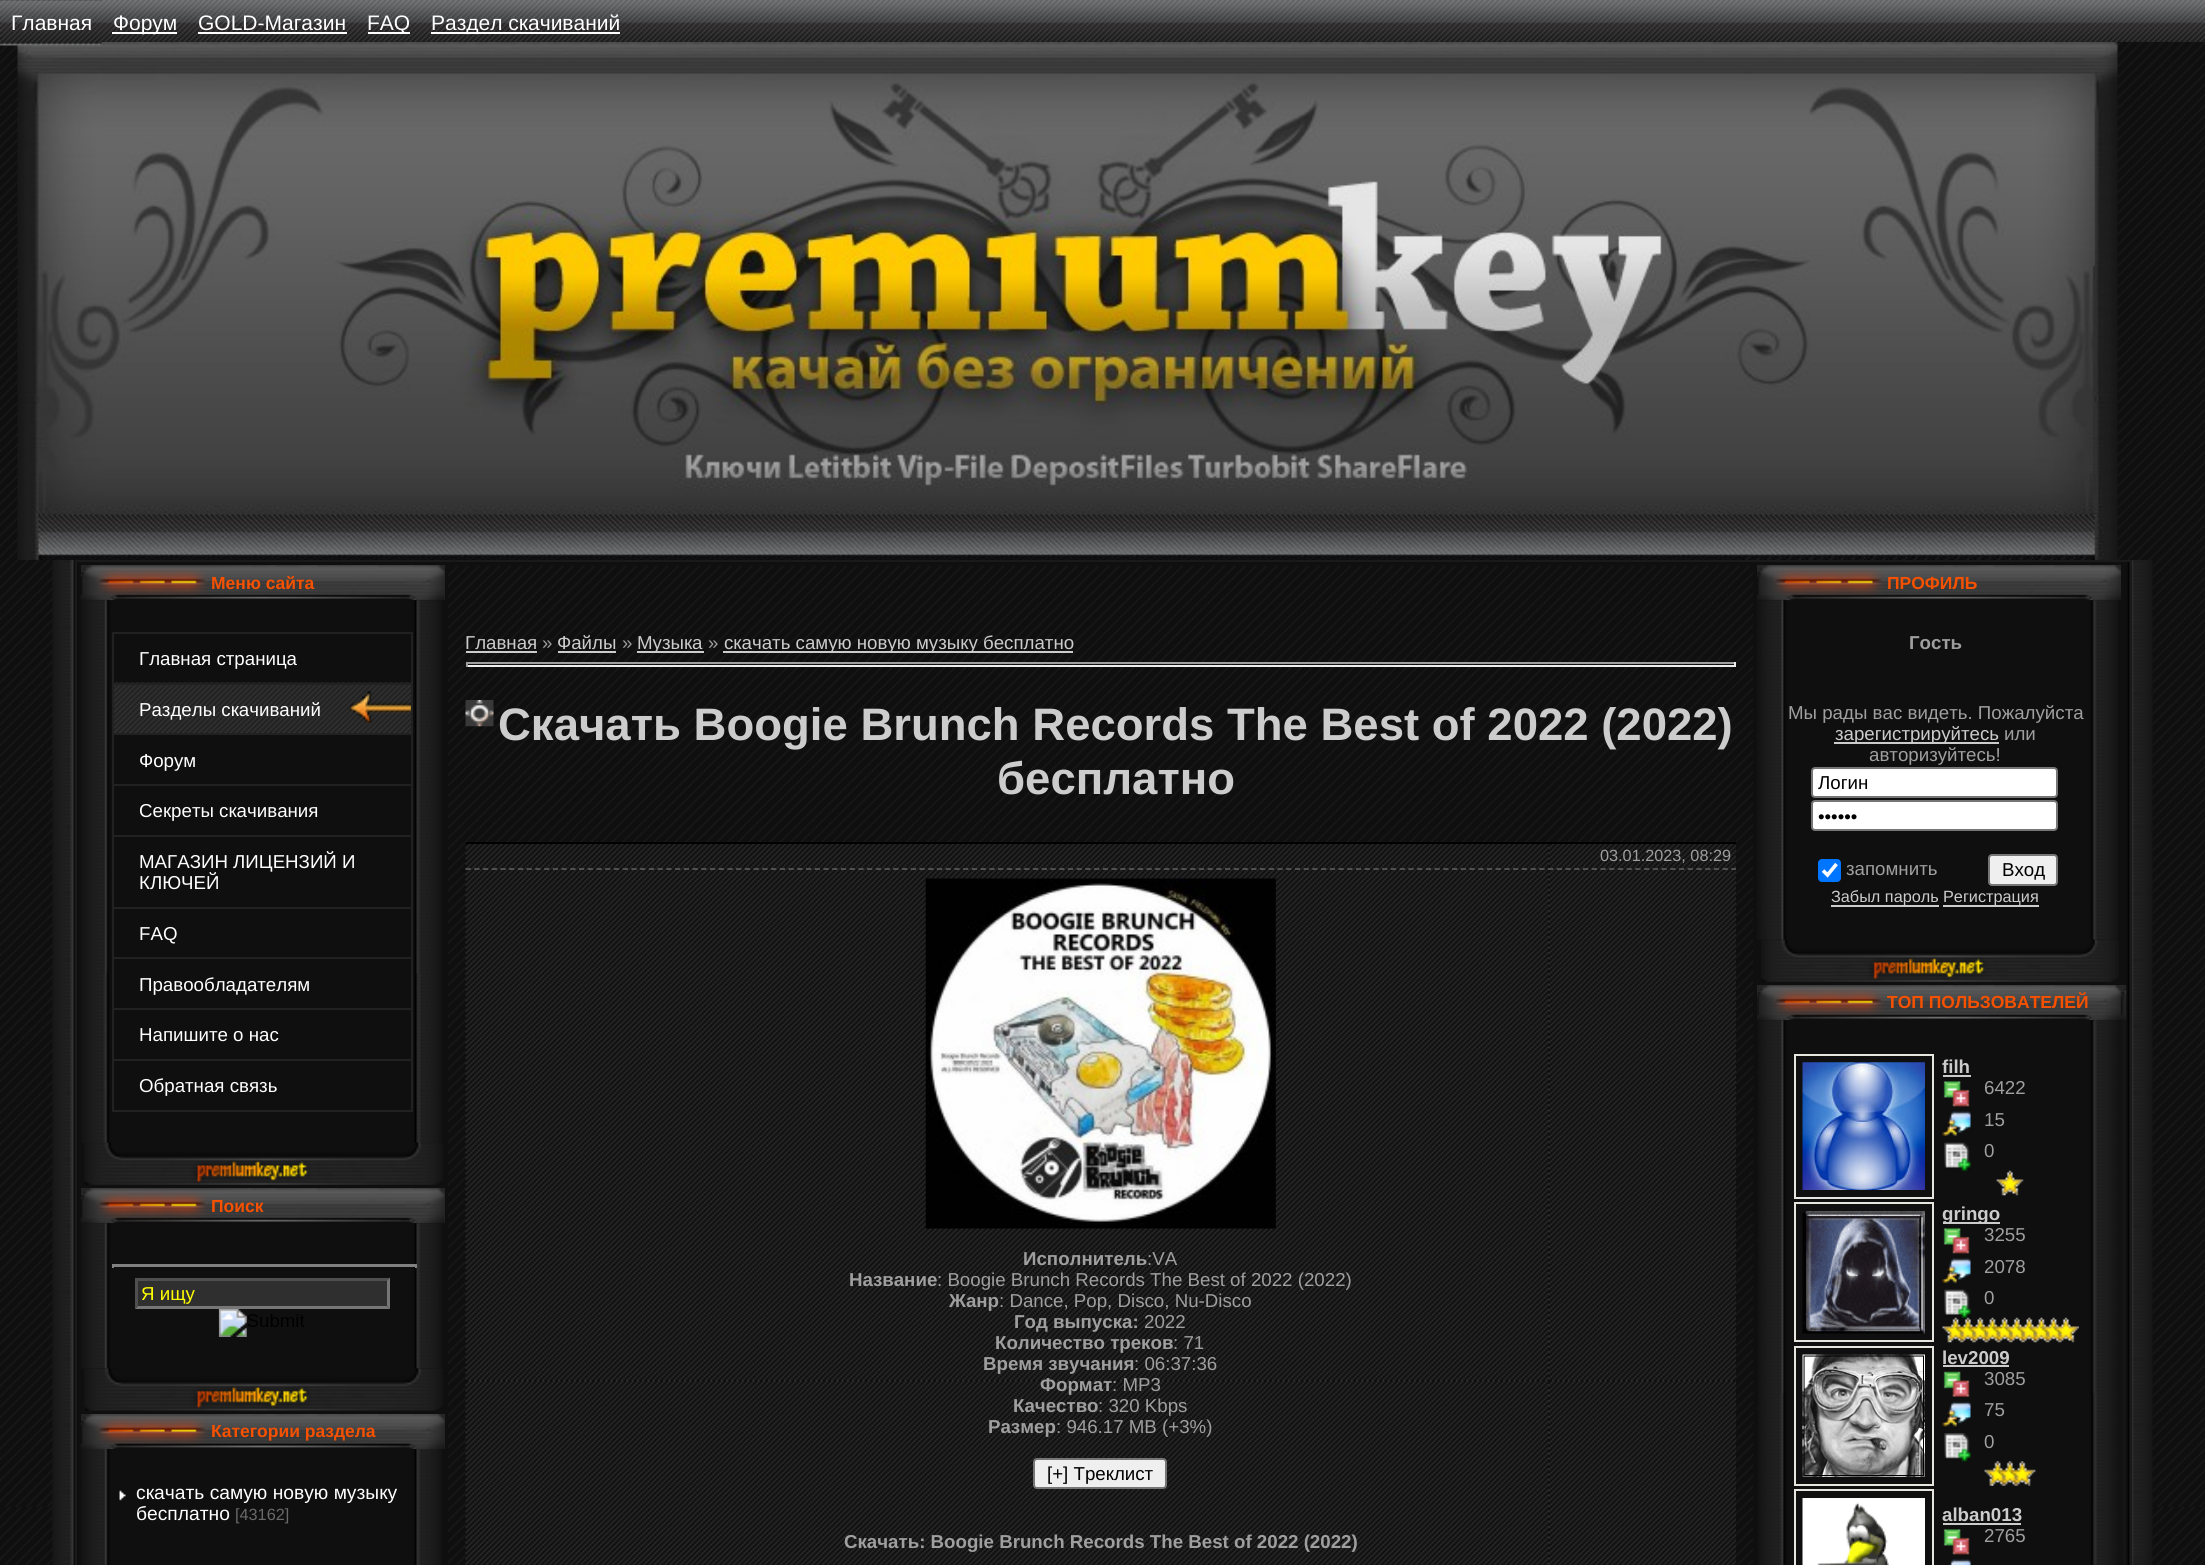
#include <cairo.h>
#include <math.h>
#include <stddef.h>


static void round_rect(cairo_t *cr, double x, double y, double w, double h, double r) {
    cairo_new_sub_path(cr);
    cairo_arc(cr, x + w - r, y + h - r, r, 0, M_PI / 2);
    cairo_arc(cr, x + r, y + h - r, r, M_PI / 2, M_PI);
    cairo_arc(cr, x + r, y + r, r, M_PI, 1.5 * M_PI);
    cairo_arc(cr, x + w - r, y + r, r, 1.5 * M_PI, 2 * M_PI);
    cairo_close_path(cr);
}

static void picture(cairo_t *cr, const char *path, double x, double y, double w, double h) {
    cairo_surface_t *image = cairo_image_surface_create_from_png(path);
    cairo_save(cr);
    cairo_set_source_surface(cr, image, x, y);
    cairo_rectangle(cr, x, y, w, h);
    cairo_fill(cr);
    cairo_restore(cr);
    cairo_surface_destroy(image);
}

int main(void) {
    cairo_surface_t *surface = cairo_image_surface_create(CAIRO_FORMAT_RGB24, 2205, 1565);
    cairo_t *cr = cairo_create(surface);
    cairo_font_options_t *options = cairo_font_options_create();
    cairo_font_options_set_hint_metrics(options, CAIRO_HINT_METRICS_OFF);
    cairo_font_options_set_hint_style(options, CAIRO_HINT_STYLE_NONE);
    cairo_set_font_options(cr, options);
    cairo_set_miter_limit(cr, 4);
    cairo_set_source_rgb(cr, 1, 1, 1);
    cairo_paint(cr);
    picture(cr, "img1.png", 0, 42, 2205, 1523);
    picture(cr, "img2.png", 101, 0, 2104, 42);
    picture(cr, "img4.png", 17, 42, 2101, 518);
    picture(cr, "img3.png", 0, 0, 102, 46);
    cairo_select_font_face(cr, "Liberation Sans", CAIRO_FONT_SLANT_NORMAL, CAIRO_FONT_WEIGHT_NORMAL);
    cairo_set_font_size(cr, 21);
    cairo_set_source_rgb(cr, 1, 1, 1);
    cairo_move_to(cr, 11, 30);
    cairo_show_text(cr, "Главная");
    cairo_rectangle(cr, 112, 32, 65, 2);
    cairo_fill(cr);
    cairo_move_to(cr, 113, 30);
    cairo_show_text(cr, "Форум");
    cairo_move_to(cr, 198, 30);
    cairo_show_text(cr, "GOLD-Магазин");
    cairo_rectangle(cr, 198, 32, 149, 2);
    cairo_fill(cr);
    cairo_rectangle(cr, 368, 32, 42, 2);
    cairo_fill(cr);
    cairo_move_to(cr, 367, 30);
    cairo_show_text(cr, "FAQ");
    cairo_rectangle(cr, 431, 32, 189, 2);
    cairo_fill(cr);
    cairo_move_to(cr, 431, 30);
    cairo_show_text(cr, "Раздел скачиваний");
    picture(cr, "img5.png", 52, 560, 2101, 1005);
    cairo_rectangle(cr, 76, 561, 2055, 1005);
    cairo_set_source_rgb(cr, 0.102, 0.102, 0.102);
    cairo_stroke(cr);
    cairo_set_source_rgb(cr, 0.145, 0.145, 0.145);
    cairo_rectangle(cr, 81, 565, 364, 35);
    cairo_fill(cr);
    picture(cr, "img6.png", 80, 565, 365, 36);
    cairo_select_font_face(cr, "Liberation Sans", CAIRO_FONT_SLANT_NORMAL, CAIRO_FONT_WEIGHT_BOLD);
    cairo_set_font_size(cr, 17.5);
    cairo_set_source_rgb(cr, 0.961, 0.318, 0);
    cairo_move_to(cr, 211, 589);
    cairo_show_text(cr, "Меню сайта");
    picture(cr, "img7.png", 81, 600, 361, 543);
    cairo_set_source_rgb(cr, 0.129, 0.129, 0.129);
    cairo_rectangle(cr, 112, 1110, 301, 2);
    cairo_fill(cr);
    cairo_rectangle(cr, 112, 632, 301, 2);
    cairo_fill(cr);
    cairo_rectangle(cr, 411, 632, 2, 51);
    cairo_fill(cr);
    cairo_rectangle(cr, 112, 632, 2, 51);
    cairo_fill(cr);
    cairo_select_font_face(cr, "Liberation Sans", CAIRO_FONT_SLANT_NORMAL, CAIRO_FONT_WEIGHT_NORMAL);
    cairo_set_font_size(cr, 18.7);
    cairo_set_source_rgb(cr, 1, 1, 1);
    cairo_move_to(cr, 139, 665);
    cairo_show_text(cr, "Главная страница");
    picture(cr, "img8.png", 112, 682, 301, 51);
    cairo_set_source_rgb(cr, 0.129, 0.129, 0.129);
    cairo_rectangle(cr, 112, 683, 301, 2);
    cairo_fill(cr);
    cairo_rectangle(cr, 411, 683, 2, 50);
    cairo_fill(cr);
    cairo_rectangle(cr, 112, 683, 2, 50);
    cairo_fill(cr);
    cairo_set_source_rgb(cr, 1, 1, 1);
    cairo_move_to(cr, 139, 716);
    cairo_show_text(cr, "Разделы скачиваний");
    cairo_set_source_rgb(cr, 0.129, 0.129, 0.129);
    cairo_rectangle(cr, 112, 733, 301, 2);
    cairo_fill(cr);
    cairo_rectangle(cr, 411, 733, 2, 51);
    cairo_fill(cr);
    cairo_rectangle(cr, 112, 733, 2, 51);
    cairo_fill(cr);
    cairo_set_source_rgb(cr, 1, 1, 1);
    cairo_move_to(cr, 139, 767);
    cairo_show_text(cr, "Форум");
    cairo_set_source_rgb(cr, 0.129, 0.129, 0.129);
    cairo_rectangle(cr, 112, 784, 301, 2);
    cairo_fill(cr);
    cairo_rectangle(cr, 411, 784, 2, 51);
    cairo_fill(cr);
    cairo_rectangle(cr, 112, 784, 2, 51);
    cairo_fill(cr);
    cairo_set_source_rgb(cr, 1, 1, 1);
    cairo_move_to(cr, 139, 817);
    cairo_show_text(cr, "Секреты скачивания");
    cairo_set_source_rgb(cr, 0.129, 0.129, 0.129);
    cairo_rectangle(cr, 112, 835, 301, 2);
    cairo_fill(cr);
    cairo_rectangle(cr, 411, 835, 2, 72);
    cairo_fill(cr);
    cairo_rectangle(cr, 112, 835, 2, 72);
    cairo_fill(cr);
    cairo_set_source_rgb(cr, 1, 1, 1);
    cairo_move_to(cr, 139, 868);
    cairo_show_text(cr, "МАГАЗИН ЛИЦЕНЗИЙ И");
    cairo_move_to(cr, 139, 889);
    cairo_show_text(cr, "КЛЮЧЕЙ");
    cairo_set_source_rgb(cr, 0.129, 0.129, 0.129);
    cairo_rectangle(cr, 112, 907, 301, 2);
    cairo_fill(cr);
    cairo_rectangle(cr, 411, 907, 2, 50);
    cairo_fill(cr);
    cairo_rectangle(cr, 112, 907, 2, 50);
    cairo_fill(cr);
    cairo_set_source_rgb(cr, 1, 1, 1);
    cairo_move_to(cr, 139, 940);
    cairo_show_text(cr, "FAQ");
    cairo_set_source_rgb(cr, 0.129, 0.129, 0.129);
    cairo_rectangle(cr, 112, 957, 301, 2);
    cairo_fill(cr);
    cairo_rectangle(cr, 411, 957, 2, 51);
    cairo_fill(cr);
    cairo_rectangle(cr, 112, 957, 2, 51);
    cairo_fill(cr);
    cairo_set_source_rgb(cr, 1, 1, 1);
    cairo_move_to(cr, 139, 991);
    cairo_show_text(cr, "Правообладателям");
    cairo_set_source_rgb(cr, 0.129, 0.129, 0.129);
    cairo_rectangle(cr, 112, 1008, 301, 2);
    cairo_fill(cr);
    cairo_rectangle(cr, 411, 1008, 2, 51);
    cairo_fill(cr);
    cairo_rectangle(cr, 112, 1008, 2, 51);
    cairo_fill(cr);
    cairo_set_source_rgb(cr, 1, 1, 1);
    cairo_move_to(cr, 139, 1041);
    cairo_show_text(cr, "Напишите о нас");
    cairo_set_source_rgb(cr, 0.129, 0.129, 0.129);
    cairo_rectangle(cr, 112, 1059, 301, 2);
    cairo_fill(cr);
    cairo_rectangle(cr, 411, 1059, 2, 51);
    cairo_fill(cr);
    cairo_rectangle(cr, 112, 1059, 2, 51);
    cairo_fill(cr);
    cairo_set_source_rgb(cr, 1, 1, 1);
    cairo_move_to(cr, 139, 1092);
    cairo_show_text(cr, "Обратная связь");
    picture(cr, "img9.png", 84, 1142, 359, 43);
    cairo_set_source_rgb(cr, 0.145, 0.145, 0.145);
    cairo_rectangle(cr, 81, 1188, 364, 35);
    cairo_fill(cr);
    picture(cr, "img6.png", 80, 1188, 365, 36);
    cairo_select_font_face(cr, "Liberation Sans", CAIRO_FONT_SLANT_NORMAL, CAIRO_FONT_WEIGHT_BOLD);
    cairo_set_font_size(cr, 17.5);
    cairo_set_source_rgb(cr, 0.961, 0.318, 0);
    cairo_move_to(cr, 211, 1212);
    cairo_show_text(cr, "Поиск");
    picture(cr, "img10.png", 81, 1223, 361, 146);
    cairo_set_source_rgb(cr, 0.502, 0.502, 0.502);
    cairo_rectangle(cr, 114, 1266, 301, 1);
    cairo_fill(cr);
    cairo_rectangle(cr, 112, 1264, 305, 2);
    cairo_fill(cr);
    cairo_rectangle(cr, 415, 1264, 2, 4);
    cairo_fill(cr);
    cairo_rectangle(cr, 112, 1264, 2, 4);
    cairo_fill(cr);
    cairo_set_source_rgb(cr, 0.184, 0.184, 0.184);
    cairo_rectangle(cr, 135, 1278, 255, 31);
    cairo_fill(cr);
    cairo_set_source_rgb(cr, 0.31, 0.31, 0.31);
    cairo_new_path(cr);
    cairo_move_to(cr, 135, 1278);
    cairo_line_to(cr, 390, 1278);
    cairo_line_to(cr, 387, 1281);
    cairo_line_to(cr, 138, 1281);
    cairo_close_path(cr);
    cairo_fill(cr);
    cairo_set_source_rgb(cr, 0.463, 0.463, 0.463);
    cairo_new_path(cr);
    cairo_move_to(cr, 390, 1277.5);
    cairo_line_to(cr, 390, 1309);
    cairo_line_to(cr, 387, 1305.5);
    cairo_line_to(cr, 387, 1281);
    cairo_close_path(cr);
    cairo_fill(cr);
    cairo_new_path(cr);
    cairo_move_to(cr, 390, 1309);
    cairo_line_to(cr, 135, 1309);
    cairo_line_to(cr, 138, 1306);
    cairo_line_to(cr, 387, 1306);
    cairo_close_path(cr);
    cairo_fill(cr);
    cairo_set_source_rgb(cr, 0.31, 0.31, 0.31);
    cairo_new_path(cr);
    cairo_move_to(cr, 135, 1309);
    cairo_line_to(cr, 135, 1277.5);
    cairo_line_to(cr, 138, 1281);
    cairo_line_to(cr, 138, 1305.5);
    cairo_close_path(cr);
    cairo_fill(cr);
    cairo_select_font_face(cr, "Liberation Sans", CAIRO_FONT_SLANT_NORMAL, CAIRO_FONT_WEIGHT_NORMAL);
    cairo_set_font_size(cr, 18.7);
    cairo_set_source_rgb(cr, 1, 1, 0);
    cairo_move_to(cr, 141, 1300);
    cairo_show_text(cr, "Я ищу");
    picture(cr, "img11.png", 218, 1309, 86, 28);
    picture(cr, "img12.png", 84, 1368, 359, 43);
    cairo_set_source_rgb(cr, 0.145, 0.145, 0.145);
    cairo_rectangle(cr, 81, 1414, 364, 35);
    cairo_fill(cr);
    picture(cr, "img13.png", 80, 1414, 365, 35);
    cairo_select_font_face(cr, "Liberation Sans", CAIRO_FONT_SLANT_NORMAL, CAIRO_FONT_WEIGHT_BOLD);
    cairo_set_font_size(cr, 17.5);
    cairo_set_source_rgb(cr, 0.961, 0.318, 0);
    cairo_move_to(cr, 211, 1437);
    cairo_show_text(cr, "Категории раздела");
    picture(cr, "img14.png", 81, 1449, 361, 116);
    picture(cr, "img15.png", 119, 1490, 7, 11);
    cairo_select_font_face(cr, "Liberation Sans", CAIRO_FONT_SLANT_NORMAL, CAIRO_FONT_WEIGHT_NORMAL);
    cairo_set_font_size(cr, 19.25);
    cairo_set_source_rgb(cr, 1, 1, 1);
    cairo_move_to(cr, 136, 1499);
    cairo_show_text(cr, "скачать самую новую музыку");
    cairo_move_to(cr, 136, 1520);
    cairo_show_text(cr, "бесплатно");
    cairo_set_font_size(cr, 16.25);
    cairo_set_source_rgb(cr, 0.412, 0.412, 0.412);
    cairo_move_to(cr, 235, 1520);
    cairo_show_text(cr, "[43162]");
    picture(cr, "img16.png", 448, 565, 1305, 1000);
    cairo_set_font_size(cr, 18.7);
    cairo_set_source_rgb(cr, 0.8, 0.8, 0.8);
    cairo_move_to(cr, 465, 649);
    cairo_show_text(cr, "Главная");
    cairo_rectangle(cr, 466, 651, 71, 2);
    cairo_fill(cr);
    cairo_set_source_rgb(cr, 0.624, 0.624, 0.624);
    cairo_move_to(cr, 542, 649);
    cairo_show_text(cr, "»");
    cairo_set_source_rgb(cr, 0.8, 0.8, 0.8);
    cairo_move_to(cr, 557, 649);
    cairo_show_text(cr, "Файлы");
    cairo_rectangle(cr, 558, 651, 58, 2);
    cairo_fill(cr);
    cairo_set_source_rgb(cr, 0.624, 0.624, 0.624);
    cairo_move_to(cr, 622, 649);
    cairo_show_text(cr, "»");
    cairo_set_source_rgb(cr, 0.8, 0.8, 0.8);
    cairo_rectangle(cr, 637, 651, 67, 2);
    cairo_fill(cr);
    cairo_move_to(cr, 637, 649);
    cairo_show_text(cr, "Музыка");
    cairo_set_source_rgb(cr, 0.624, 0.624, 0.624);
    cairo_move_to(cr, 708, 649);
    cairo_show_text(cr, "»");
    cairo_set_source_rgb(cr, 0.8, 0.8, 0.8);
    cairo_rectangle(cr, 723, 651, 350, 2);
    cairo_fill(cr);
    cairo_move_to(cr, 724, 649);
    cairo_show_text(cr, "скачать самую новую музыку бесплатно");
    cairo_set_source_rgb(cr, 0.624, 0.624, 0.624);
    cairo_rectangle(cr, 466, 662, 1270, 2);
    cairo_fill(cr);
    cairo_set_source_rgb(cr, 0.933, 0.933, 0.933);
    cairo_rectangle(cr, 1734, 662, 2, 5);
    cairo_fill(cr);
    cairo_rectangle(cr, 466, 665, 1270, 2);
    cairo_fill(cr);
    cairo_set_source_rgb(cr, 0.624, 0.624, 0.624);
    cairo_rectangle(cr, 466, 662, 2, 5);
    cairo_fill(cr);
    picture(cr, "img17.png", 465, 700, 29, 27);
    cairo_select_font_face(cr, "Liberation Sans", CAIRO_FONT_SLANT_NORMAL, CAIRO_FONT_WEIGHT_BOLD);
    cairo_set_font_size(cr, 45.5);
    cairo_set_source_rgb(cr, 0.8, 0.8, 0.8);
    cairo_move_to(cr, 498, 740);
    cairo_show_text(cr, "Скачать Boogie Brunch Records The Best of 2022 (2022)");
    cairo_move_to(cr, 997, 794);
    cairo_show_text(cr, "бесплатно");
    picture(cr, "img18.png", 465, 841, 1271, 724);
    cairo_set_source_rgb(cr, 0, 0, 0);
    cairo_rectangle(cr, 466, 842, 1270, 2);
    cairo_fill(cr);
    cairo_select_font_face(cr, "Liberation Sans", CAIRO_FONT_SLANT_NORMAL, CAIRO_FONT_WEIGHT_NORMAL);
    cairo_set_font_size(cr, 16.25);
    cairo_set_source_rgb(cr, 0.624, 0.624, 0.624);
    cairo_move_to(cr, 1600, 861);
    cairo_show_text(cr, "03.01.2023, 08:29");
    cairo_new_path(cr);
    cairo_move_to(cr, 465.5, 869);
    cairo_line_to(cr, 1736, 869);
    cairo_set_source_rgb(cr, 0.333, 0.333, 0.333);
    cairo_set_line_width(cr, 1.8);
    cairo_set_dash(cr, (double[]){5.25, 3.48}, 2, 0);
    cairo_stroke(cr);
    picture(cr, "img19.png", 925, 878, 351, 351);
    cairo_select_font_face(cr, "Liberation Sans", CAIRO_FONT_SLANT_NORMAL, CAIRO_FONT_WEIGHT_BOLD);
    cairo_set_font_size(cr, 18.7);
    cairo_set_source_rgb(cr, 0.624, 0.624, 0.624);
    cairo_move_to(cr, 1023, 1265);
    cairo_show_text(cr, "Исполнитель");
    cairo_select_font_face(cr, "Liberation Sans", CAIRO_FONT_SLANT_NORMAL, CAIRO_FONT_WEIGHT_NORMAL);
    cairo_move_to(cr, 1147, 1265);
    cairo_show_text(cr, ":VA");
    cairo_select_font_face(cr, "Liberation Sans", CAIRO_FONT_SLANT_NORMAL, CAIRO_FONT_WEIGHT_BOLD);
    cairo_move_to(cr, 849, 1286);
    cairo_show_text(cr, "Название");
    cairo_select_font_face(cr, "Liberation Sans", CAIRO_FONT_SLANT_NORMAL, CAIRO_FONT_WEIGHT_NORMAL);
    cairo_move_to(cr, 937, 1286);
    cairo_show_text(cr, ": Boogie Brunch Records The Best of 2022 (2022)");
    cairo_select_font_face(cr, "Liberation Sans", CAIRO_FONT_SLANT_NORMAL, CAIRO_FONT_WEIGHT_BOLD);
    cairo_move_to(cr, 949, 1307);
    cairo_show_text(cr, "Жанр");
    cairo_select_font_face(cr, "Liberation Sans", CAIRO_FONT_SLANT_NORMAL, CAIRO_FONT_WEIGHT_NORMAL);
    cairo_move_to(cr, 999, 1307);
    cairo_show_text(cr, ": Dance, Pop, Disco, Nu-Disco");
    cairo_select_font_face(cr, "Liberation Sans", CAIRO_FONT_SLANT_NORMAL, CAIRO_FONT_WEIGHT_BOLD);
    cairo_move_to(cr, 1014, 1328);
    cairo_show_text(cr, "Год выпуска:");
    cairo_select_font_face(cr, "Liberation Sans", CAIRO_FONT_SLANT_NORMAL, CAIRO_FONT_WEIGHT_NORMAL);
    cairo_move_to(cr, 1144, 1328);
    cairo_show_text(cr, "2022");
    cairo_select_font_face(cr, "Liberation Sans", CAIRO_FONT_SLANT_NORMAL, CAIRO_FONT_WEIGHT_BOLD);
    cairo_move_to(cr, 995, 1349);
    cairo_show_text(cr, "Количество треков");
    cairo_select_font_face(cr, "Liberation Sans", CAIRO_FONT_SLANT_NORMAL, CAIRO_FONT_WEIGHT_NORMAL);
    cairo_move_to(cr, 1173, 1349);
    cairo_show_text(cr, ": 71");
    cairo_select_font_face(cr, "Liberation Sans", CAIRO_FONT_SLANT_NORMAL, CAIRO_FONT_WEIGHT_BOLD);
    cairo_move_to(cr, 983, 1370);
    cairo_show_text(cr, "Время звучания");
    cairo_select_font_face(cr, "Liberation Sans", CAIRO_FONT_SLANT_NORMAL, CAIRO_FONT_WEIGHT_NORMAL);
    cairo_move_to(cr, 1134, 1370);
    cairo_show_text(cr, ": 06:37:36");
    cairo_select_font_face(cr, "Liberation Sans", CAIRO_FONT_SLANT_NORMAL, CAIRO_FONT_WEIGHT_BOLD);
    cairo_move_to(cr, 1040, 1391);
    cairo_show_text(cr, "Формат");
    cairo_select_font_face(cr, "Liberation Sans", CAIRO_FONT_SLANT_NORMAL, CAIRO_FONT_WEIGHT_NORMAL);
    cairo_move_to(cr, 1112, 1391);
    cairo_show_text(cr, ": MP3");
    cairo_select_font_face(cr, "Liberation Sans", CAIRO_FONT_SLANT_NORMAL, CAIRO_FONT_WEIGHT_BOLD);
    cairo_move_to(cr, 1013, 1412);
    cairo_show_text(cr, "Качество");
    cairo_select_font_face(cr, "Liberation Sans", CAIRO_FONT_SLANT_NORMAL, CAIRO_FONT_WEIGHT_NORMAL);
    cairo_move_to(cr, 1098, 1412);
    cairo_show_text(cr, ": 320 Kbps");
    cairo_select_font_face(cr, "Liberation Sans", CAIRO_FONT_SLANT_NORMAL, CAIRO_FONT_WEIGHT_BOLD);
    cairo_move_to(cr, 988, 1433);
    cairo_show_text(cr, "Размер");
    cairo_select_font_face(cr, "Liberation Sans", CAIRO_FONT_SLANT_NORMAL, CAIRO_FONT_WEIGHT_NORMAL);
    cairo_move_to(cr, 1056, 1433);
    cairo_show_text(cr, ": 946.17 MB (+3%)");
    cairo_set_source_rgb(cr, 0.937, 0.937, 0.937);
    round_rect(cr, 1034, 1459, 132, 29, 3);
    cairo_fill_preserve(cr);
    cairo_set_source_rgb(cr, 0.463, 0.463, 0.463);
    cairo_set_line_width(cr, 2);
    cairo_set_dash(cr, NULL, 0, 0);
    cairo_stroke(cr);
    cairo_set_source_rgb(cr, 0, 0, 0);
    cairo_move_to(cr, 1047, 1480);
    cairo_show_text(cr, "[+] Треклист");
    cairo_select_font_face(cr, "Liberation Sans", CAIRO_FONT_SLANT_NORMAL, CAIRO_FONT_WEIGHT_BOLD);
    cairo_set_source_rgb(cr, 0.624, 0.624, 0.624);
    cairo_move_to(cr, 844, 1548);
    cairo_show_text(cr, "Скачать: Boogie Brunch Records The Best of 2022 (2022)");
    cairo_set_source_rgb(cr, 0.145, 0.145, 0.145);
    cairo_rectangle(cr, 1757, 565, 364, 12);
    cairo_fill(cr);
    picture(cr, "img20.png", 1757, 565, 364, 36);
    cairo_set_font_size(cr, 17.5);
    cairo_set_source_rgb(cr, 0.961, 0.318, 0);
    cairo_move_to(cr, 1887, 589);
    cairo_show_text(cr, "ПРОФИЛЬ");
    picture(cr, "img21.png", 1757, 600, 361, 340);
    cairo_set_font_size(cr, 18.7);
    cairo_set_source_rgb(cr, 0.624, 0.624, 0.624);
    cairo_move_to(cr, 1909, 649);
    cairo_show_text(cr, "Гость");
    cairo_select_font_face(cr, "Liberation Sans", CAIRO_FONT_SLANT_NORMAL, CAIRO_FONT_WEIGHT_NORMAL);
    cairo_move_to(cr, 1788, 719);
    cairo_show_text(cr, "Мы рады вас видеть. Пожалуйста");
    cairo_set_source_rgb(cr, 0.8, 0.8, 0.8);
    cairo_rectangle(cr, 1834, 742, 165, 2);
    cairo_fill(cr);
    cairo_move_to(cr, 1835, 740);
    cairo_show_text(cr, "зарегистрируйтесь");
    cairo_set_source_rgb(cr, 0.624, 0.624, 0.624);
    cairo_move_to(cr, 2004, 740);
    cairo_show_text(cr, "или");
    cairo_move_to(cr, 1869, 761);
    cairo_show_text(cr, "авторизуйтесь!");
    cairo_set_source_rgb(cr, 1, 1, 1);
    round_rect(cr, 1812, 768, 245, 29, 3);
    cairo_fill_preserve(cr);
    cairo_set_source_rgb(cr, 0.463, 0.463, 0.463);
    cairo_stroke(cr);
    cairo_set_source_rgb(cr, 0, 0, 0);
    cairo_move_to(cr, 1818, 789);
    cairo_show_text(cr, "Логин");
    cairo_set_source_rgb(cr, 1, 1, 1);
    round_rect(cr, 1812, 801, 245, 29, 3);
    cairo_fill_preserve(cr);
    cairo_set_source_rgb(cr, 0.463, 0.463, 0.463);
    cairo_stroke(cr);
    cairo_set_source_rgb(cr, 0, 0, 0);
    cairo_move_to(cr, 1818, 823);
    cairo_show_text(cr, "••••••");
    cairo_set_source_rgb(cr, 0, 0.459, 1);
    round_rect(cr, 1818, 859, 23, 23, 4);
    cairo_fill(cr);
    cairo_new_path(cr);
    cairo_move_to(cr, 1823, 870.5);
    cairo_line_to(cr, 1827.5, 875);
    cairo_line_to(cr, 1836.5, 864);
    cairo_set_source_rgb(cr, 1, 1, 1);
    cairo_set_line_width(cr, 3.6);
    cairo_stroke(cr);
    cairo_set_source_rgb(cr, 0.624, 0.624, 0.624);
    cairo_move_to(cr, 1846, 875);
    cairo_show_text(cr, "запомнить");
    cairo_set_source_rgb(cr, 0.937, 0.937, 0.937);
    round_rect(cr, 1989, 855, 68, 30, 3);
    cairo_fill_preserve(cr);
    cairo_set_source_rgb(cr, 0.463, 0.463, 0.463);
    cairo_set_line_width(cr, 2);
    cairo_stroke(cr);
    cairo_set_source_rgb(cr, 0, 0, 0);
    cairo_move_to(cr, 2002, 876);
    cairo_show_text(cr, "Вход");
    cairo_set_source_rgb(cr, 0.8, 0.8, 0.8);
    cairo_rectangle(cr, 1831, 905, 108, 2);
    cairo_fill(cr);
    cairo_set_font_size(cr, 16.25);
    cairo_move_to(cr, 1831, 902);
    cairo_show_text(cr, "Забыл пароль");
    cairo_rectangle(cr, 1943, 905, 96, 2);
    cairo_fill(cr);
    cairo_move_to(cr, 1943, 902);
    cairo_show_text(cr, "Регистрация");
    picture(cr, "img22.png", 1761, 939, 358, 43);
    cairo_set_source_rgb(cr, 0.145, 0.145, 0.145);
    cairo_rectangle(cr, 1757, 985, 369, 11);
    cairo_fill(cr);
    picture(cr, "img23.png", 1757, 985, 370, 36);
    cairo_select_font_face(cr, "Liberation Sans", CAIRO_FONT_SLANT_NORMAL, CAIRO_FONT_WEIGHT_BOLD);
    cairo_set_font_size(cr, 17.5);
    cairo_set_source_rgb(cr, 0.961, 0.318, 0);
    cairo_move_to(cr, 1887, 1008);
    cairo_show_text(cr, "ТОП ПОЛЬЗОВАТЕЛЕЙ");
    picture(cr, "img24.png", 1758, 1020, 368, 545);
    cairo_rectangle(cr, 1795, 1055, 138, 143);
    cairo_set_source_rgb(cr, 0.906, 0.898, 0.878);
    cairo_stroke(cr);
    picture(cr, "img25.png", 1802, 1062, 123, 128);
    cairo_set_font_size(cr, 18.7);
    cairo_set_source_rgb(cr, 0.8, 0.8, 0.8);
    cairo_move_to(cr, 1942, 1073);
    cairo_show_text(cr, "filh");
    cairo_rectangle(cr, 1943, 1075, 28, 2);
    cairo_fill(cr);
    picture(cr, "img26.png", 1943, 1081, 27, 26);
    cairo_select_font_face(cr, "Liberation Sans", CAIRO_FONT_SLANT_NORMAL, CAIRO_FONT_WEIGHT_NORMAL);
    cairo_set_source_rgb(cr, 0.624, 0.624, 0.624);
    cairo_move_to(cr, 1984, 1094);
    cairo_show_text(cr, "6422");
    picture(cr, "img27.png", 1942, 1111, 29, 26);
    cairo_move_to(cr, 1984, 1126);
    cairo_show_text(cr, "15");
    picture(cr, "img28.png", 1944, 1142, 27, 29);
    cairo_move_to(cr, 1984, 1157);
    cairo_show_text(cr, "0");
    picture(cr, "img29.png", 1996, 1170, 28, 26);
    cairo_rectangle(cr, 1795, 1203, 138, 138);
    cairo_set_source_rgb(cr, 0.906, 0.898, 0.878);
    cairo_stroke(cr);
    picture(cr, "img30.png", 1802, 1211, 123, 123);
    cairo_set_source_rgb(cr, 0.8, 0.8, 0.8);
    cairo_rectangle(cr, 1943, 1222, 57, 2);
    cairo_fill(cr);
    cairo_select_font_face(cr, "Liberation Sans", CAIRO_FONT_SLANT_NORMAL, CAIRO_FONT_WEIGHT_BOLD);
    cairo_move_to(cr, 1942, 1220);
    cairo_show_text(cr, "gringo");
    picture(cr, "img26.png", 1943, 1228, 27, 26);
    cairo_select_font_face(cr, "Liberation Sans", CAIRO_FONT_SLANT_NORMAL, CAIRO_FONT_WEIGHT_NORMAL);
    cairo_set_source_rgb(cr, 0.624, 0.624, 0.624);
    cairo_move_to(cr, 1984, 1241);
    cairo_show_text(cr, "3255");
    picture(cr, "img27.png", 1942, 1258, 29, 26);
    cairo_move_to(cr, 1984, 1273);
    cairo_show_text(cr, "2078");
    picture(cr, "img28.png", 1944, 1289, 27, 29);
    cairo_move_to(cr, 1984, 1304);
    cairo_show_text(cr, "0");
    picture(cr, "img31.png", 1942, 1317, 137, 26);
    cairo_rectangle(cr, 1795, 1347, 138, 138);
    cairo_set_source_rgb(cr, 0.906, 0.898, 0.878);
    cairo_stroke(cr);
    picture(cr, "img32.png", 1802, 1354, 123, 123);
    cairo_select_font_face(cr, "Liberation Sans", CAIRO_FONT_SLANT_NORMAL, CAIRO_FONT_WEIGHT_BOLD);
    cairo_set_source_rgb(cr, 0.8, 0.8, 0.8);
    cairo_move_to(cr, 1942, 1364);
    cairo_show_text(cr, "lev2009");
    cairo_rectangle(cr, 1943, 1365, 66, 2);
    cairo_fill(cr);
    picture(cr, "img33.png", 1943, 1371, 27, 26);
    cairo_select_font_face(cr, "Liberation Sans", CAIRO_FONT_SLANT_NORMAL, CAIRO_FONT_WEIGHT_NORMAL);
    cairo_set_source_rgb(cr, 0.624, 0.624, 0.624);
    cairo_move_to(cr, 1984, 1385);
    cairo_show_text(cr, "3085");
    picture(cr, "img34.png", 1942, 1401, 29, 27);
    cairo_move_to(cr, 1984, 1416);
    cairo_show_text(cr, "75");
    picture(cr, "img35.png", 1944, 1433, 27, 29);
    cairo_move_to(cr, 1984, 1448);
    cairo_show_text(cr, "0");
    picture(cr, "img36.png", 1984, 1461, 52, 25);
    cairo_rectangle(cr, 1795, 1490, 138, 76);
    cairo_set_source_rgb(cr, 0.906, 0.898, 0.878);
    cairo_stroke(cr);
    picture(cr, "img37.png", 1802, 1498, 123, 67);
    cairo_select_font_face(cr, "Liberation Sans", CAIRO_FONT_SLANT_NORMAL, CAIRO_FONT_WEIGHT_BOLD);
    cairo_set_source_rgb(cr, 0.8, 0.8, 0.8);
    cairo_move_to(cr, 1942, 1521);
    cairo_show_text(cr, "alban013");
    cairo_rectangle(cr, 1943, 1523, 78, 2);
    cairo_fill(cr);
    picture(cr, "img26.png", 1943, 1529, 27, 26);
    cairo_select_font_face(cr, "Liberation Sans", CAIRO_FONT_SLANT_NORMAL, CAIRO_FONT_WEIGHT_NORMAL);
    cairo_set_source_rgb(cr, 0.624, 0.624, 0.624);
    cairo_move_to(cr, 1984, 1542);
    cairo_show_text(cr, "2765");
    picture(cr, "img38.png", 1949, 1559, 22, 6);
    cairo_surface_write_to_png(surface, "page.png");
    cairo_font_options_destroy(options);
    cairo_destroy(cr);
    cairo_surface_destroy(surface);
    return 0;
}
